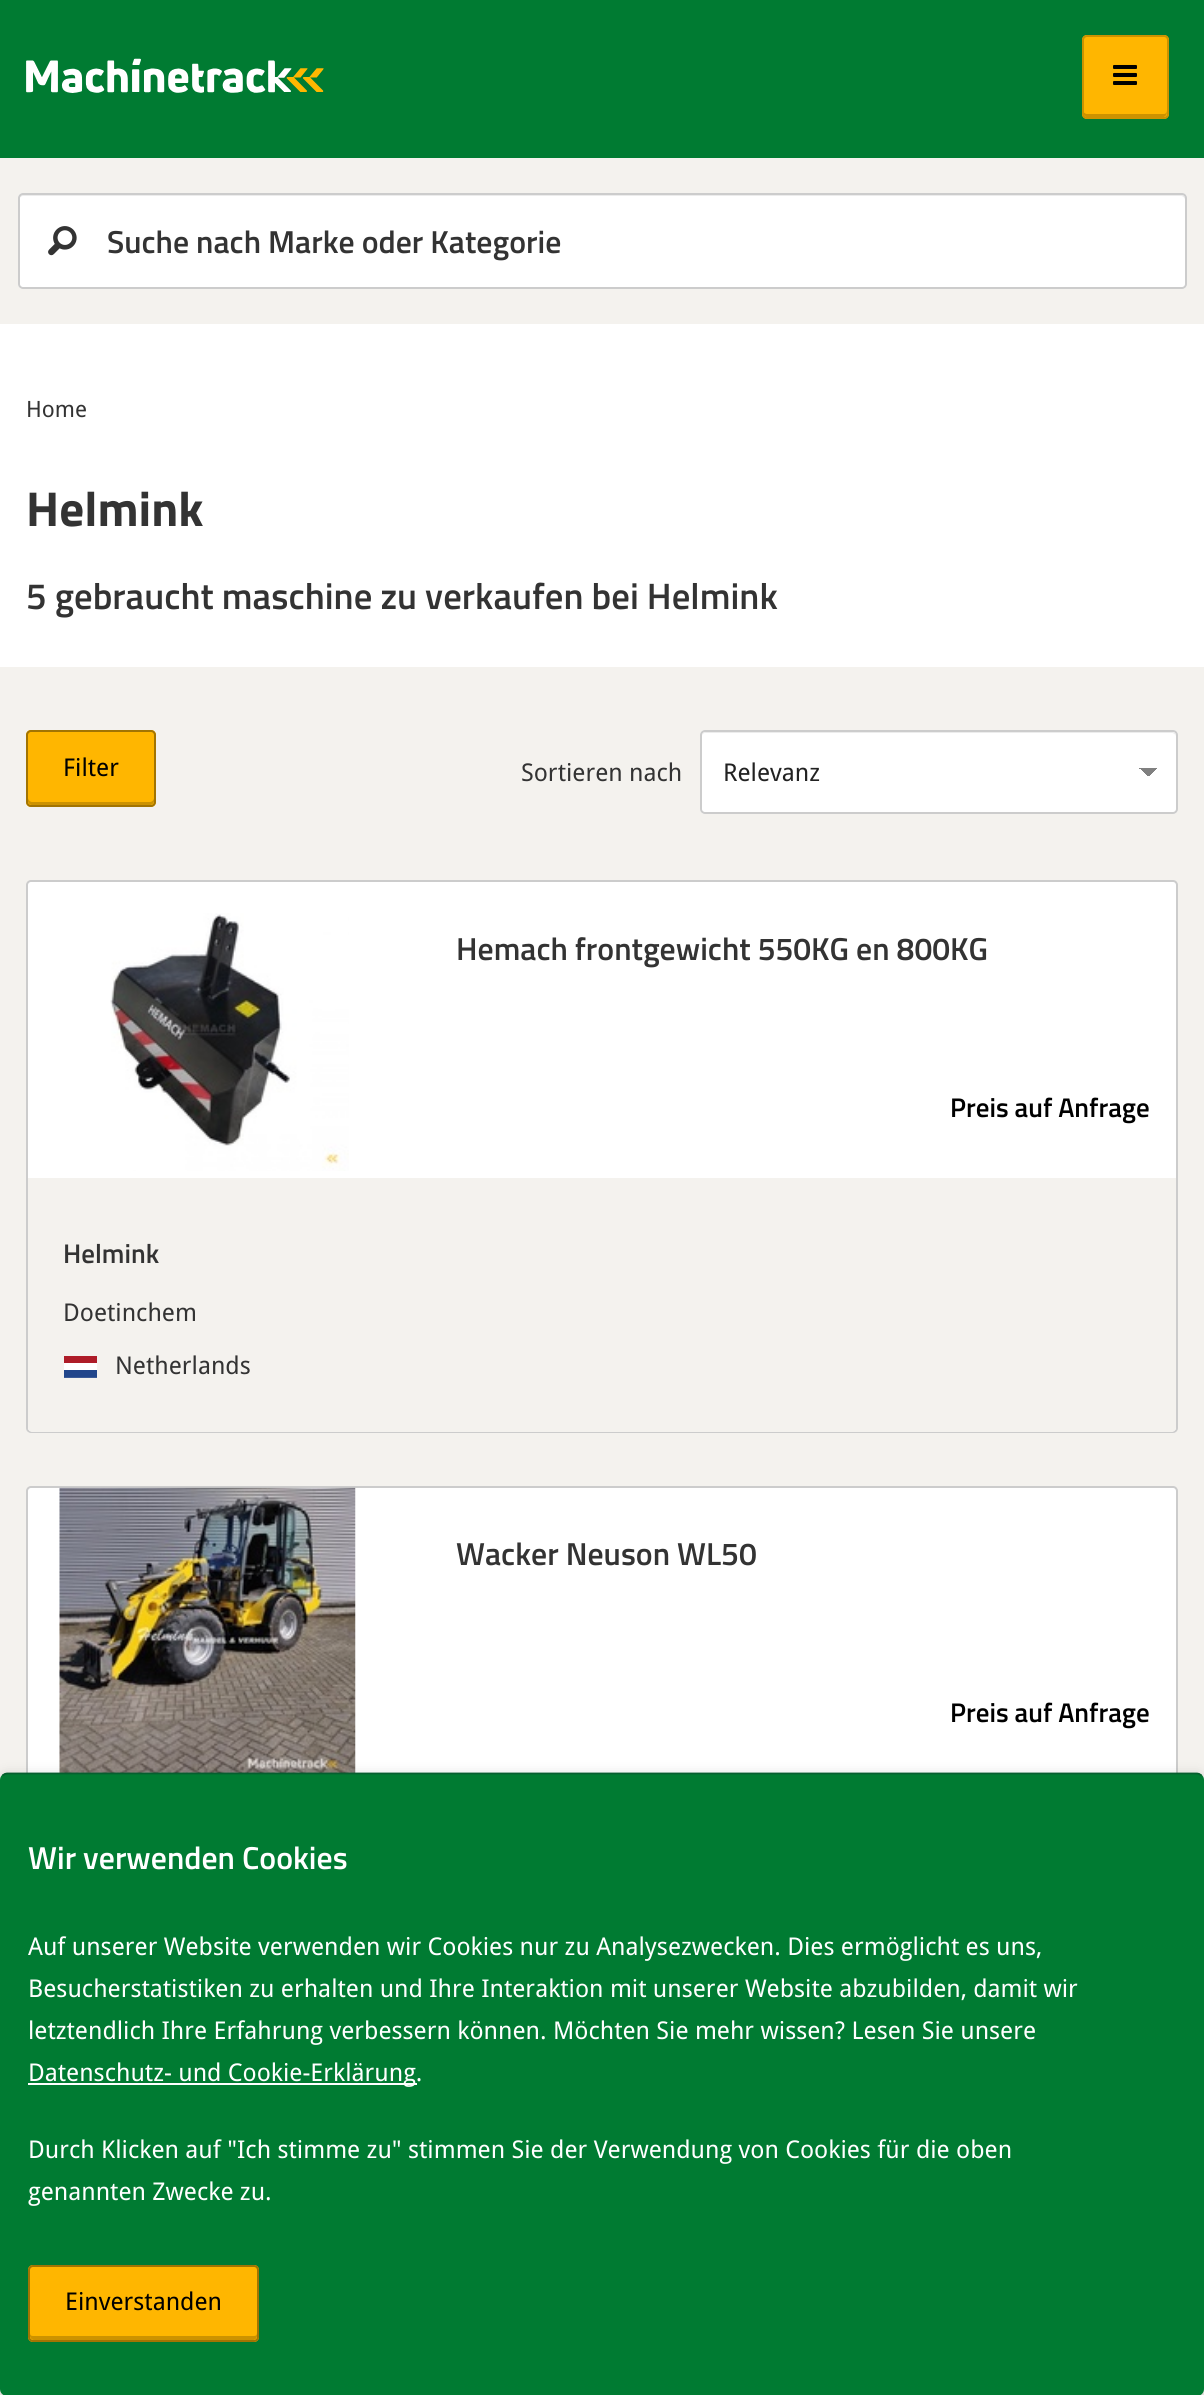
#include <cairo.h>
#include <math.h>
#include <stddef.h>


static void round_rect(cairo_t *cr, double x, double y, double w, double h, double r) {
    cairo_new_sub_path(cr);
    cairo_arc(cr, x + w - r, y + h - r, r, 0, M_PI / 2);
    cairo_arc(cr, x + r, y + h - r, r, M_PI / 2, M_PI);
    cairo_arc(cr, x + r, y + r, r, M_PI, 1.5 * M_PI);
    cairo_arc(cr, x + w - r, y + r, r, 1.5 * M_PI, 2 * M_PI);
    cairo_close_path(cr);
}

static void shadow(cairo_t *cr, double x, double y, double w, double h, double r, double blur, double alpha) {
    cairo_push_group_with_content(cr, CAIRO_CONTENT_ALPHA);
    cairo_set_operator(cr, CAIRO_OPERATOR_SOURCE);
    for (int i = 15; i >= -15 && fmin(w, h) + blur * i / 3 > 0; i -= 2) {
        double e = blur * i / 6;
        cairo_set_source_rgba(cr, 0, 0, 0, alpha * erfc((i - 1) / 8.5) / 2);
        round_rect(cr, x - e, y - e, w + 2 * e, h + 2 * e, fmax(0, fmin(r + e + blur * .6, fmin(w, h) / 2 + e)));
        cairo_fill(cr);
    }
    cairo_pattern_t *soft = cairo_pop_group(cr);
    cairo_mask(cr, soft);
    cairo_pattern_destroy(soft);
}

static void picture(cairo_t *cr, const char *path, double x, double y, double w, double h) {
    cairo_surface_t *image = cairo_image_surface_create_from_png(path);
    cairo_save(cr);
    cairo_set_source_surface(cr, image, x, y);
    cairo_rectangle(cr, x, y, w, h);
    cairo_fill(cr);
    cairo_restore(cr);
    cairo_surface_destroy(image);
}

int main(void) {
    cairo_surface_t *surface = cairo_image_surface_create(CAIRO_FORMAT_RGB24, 1204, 2395);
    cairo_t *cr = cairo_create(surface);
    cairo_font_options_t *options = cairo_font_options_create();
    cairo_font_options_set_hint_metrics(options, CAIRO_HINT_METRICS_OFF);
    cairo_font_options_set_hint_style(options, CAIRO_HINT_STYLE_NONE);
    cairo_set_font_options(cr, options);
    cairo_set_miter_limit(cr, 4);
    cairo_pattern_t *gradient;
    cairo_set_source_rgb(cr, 0, 0.482, 0.196);
    cairo_paint(cr);
    picture(cr, "img1.png", 26, 58, 298, 35);
    cairo_set_source_rgb(cr, 1, 0.714, 0);
    round_rect(cr, 1082, 35, 87, 84, 5);
    cairo_fill(cr);
    cairo_set_source_rgb(cr, 0.8, 0.573, 0);
    cairo_new_path(cr);
    cairo_move_to(cr, 1083, 110);
    cairo_curve_to(cr, 1083, 120, 1089, 117, 1100, 117);
    cairo_line_to(cr, 1150, 117);
    cairo_curve_to(cr, 1161, 117, 1167, 120, 1167, 110);
    cairo_curve_to(cr, 1167, 112, 1166, 114, 1164, 114);
    cairo_line_to(cr, 1087, 114);
    cairo_curve_to(cr, 1085, 114, 1083, 112, 1083, 110);
    cairo_close_path(cr);
    cairo_fill(cr);
    round_rect(cr, 1083, 36, 85, 82, 4);
    cairo_stroke(cr);
    cairo_select_font_face(cr, "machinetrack", CAIRO_FONT_SLANT_NORMAL, CAIRO_FONT_WEIGHT_NORMAL);
    cairo_set_font_size(cr, 28);
    cairo_set_source_rgb(cr, 0, 0, 0);
    cairo_move_to(cr, 1111, 89);
    cairo_show_text(cr, "=");
    cairo_set_source_rgb(cr, 0.957, 0.949, 0.933);
    cairo_rectangle(cr, 0, 158, 1204, 166);
    cairo_fill(cr);
    cairo_set_source_rgb(cr, 1, 1, 1);
    round_rect(cr, 18, 193, 1169, 96, 5);
    cairo_fill(cr);
    cairo_set_source_rgb(cr, 0.925, 0.925, 0.925);
    cairo_new_path(cr);
    cairo_move_to(cr, 23, 196);
    cairo_line_to(cr, 1181, 196);
    cairo_curve_to(cr, 1183, 196, 1185, 198, 1185, 200);
    cairo_line_to(cr, 1185, 198);
    cairo_curve_to(cr, 1185, 196, 1183, 194, 1181, 194);
    cairo_line_to(cr, 23, 194);
    cairo_curve_to(cr, 21, 194, 19, 196, 19, 198);
    cairo_line_to(cr, 19, 200);
    cairo_curve_to(cr, 19, 198, 21, 196, 23, 196);
    cairo_close_path(cr);
    cairo_fill(cr);
    round_rect(cr, 19, 194, 1167, 94, 4);
    cairo_set_source_rgb(cr, 0.8, 0.8, 0.8);
    cairo_stroke(cr);
    cairo_set_font_size(cr, 36.75);
    cairo_set_source_rgb(cr, 0.2, 0.2, 0.2);
    cairo_move_to(cr, 44, 259);
    cairo_show_text(cr, "p");
    cairo_select_font_face(cr, "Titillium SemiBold", CAIRO_FONT_SLANT_NORMAL, CAIRO_FONT_WEIGHT_NORMAL);
    cairo_set_font_size(cr, 31.8);
    cairo_move_to(cr, 107, 253);
    cairo_show_text(cr, "Suche nach Marke oder Kategorie");
    cairo_set_source_rgb(cr, 1, 1, 1);
    cairo_rectangle(cr, 0, 324, 1204, 343);
    cairo_fill(cr);
    cairo_select_font_face(cr, "Droid Sans", CAIRO_FONT_SLANT_NORMAL, CAIRO_FONT_WEIGHT_NORMAL);
    cairo_set_font_size(cr, 22.5);
    cairo_set_source_rgb(cr, 0.2, 0.2, 0.2);
    cairo_move_to(cr, 26, 417);
    cairo_show_text(cr, "Home");
    cairo_select_font_face(cr, "Titillium", CAIRO_FONT_SLANT_NORMAL, CAIRO_FONT_WEIGHT_BOLD);
    cairo_set_font_size(cr, 49);
    cairo_move_to(cr, 26, 526);
    cairo_show_text(cr, "Helmink");
    cairo_select_font_face(cr, "Titillium SemiBold", CAIRO_FONT_SLANT_NORMAL, CAIRO_FONT_WEIGHT_NORMAL);
    cairo_set_font_size(cr, 36.75);
    cairo_move_to(cr, 26, 609);
    cairo_show_text(cr, "5 gebraucht maschine zu verkaufen bei Helmink");
    cairo_set_source_rgb(cr, 0.957, 0.949, 0.933);
    cairo_rectangle(cr, 0, 667, 1204, 1728);
    cairo_fill(cr);
    cairo_set_source_rgb(cr, 1, 0.714, 0);
    round_rect(cr, 26, 730, 130, 77, 5);
    cairo_fill(cr);
    cairo_set_source_rgb(cr, 0.8, 0.573, 0);
    cairo_new_path(cr);
    cairo_move_to(cr, 28, 798);
    cairo_line_to(cr, 28, 801);
    cairo_curve_to(cr, 28, 803, 30, 805, 32, 805);
    cairo_line_to(cr, 150, 805);
    cairo_curve_to(cr, 152, 805, 154, 803, 154, 801);
    cairo_line_to(cr, 154, 798);
    cairo_curve_to(cr, 154, 800, 152, 802, 150, 802);
    cairo_line_to(cr, 32, 802);
    cairo_curve_to(cr, 30, 802, 28, 800, 28, 798);
    cairo_close_path(cr);
    cairo_fill(cr);
    round_rect(cr, 27, 731, 128, 75, 4);
    cairo_set_source_rgb(cr, 0.635, 0.455, 0.008);
    cairo_stroke(cr);
    cairo_select_font_face(cr, "Droid Sans", CAIRO_FONT_SLANT_NORMAL, CAIRO_FONT_WEIGHT_NORMAL);
    cairo_set_font_size(cr, 24.5);
    cairo_set_source_rgb(cr, 0, 0, 0);
    cairo_move_to(cr, 63, 776);
    cairo_show_text(cr, "Filter");
    cairo_set_source_rgb(cr, 0.2, 0.2, 0.2);
    cairo_move_to(cr, 521, 781);
    cairo_show_text(cr, "Sortieren nach");
    cairo_set_source_rgb(cr, 1, 1, 1);
    round_rect(cr, 700, 730, 478, 84, 5);
    cairo_fill(cr);
    gradient = cairo_pattern_create_linear(1148, 768, 1157, 777);
    cairo_pattern_add_color_stop_rgba(gradient, 0.5, 0.502, 0.502, 0.502, 1);
    cairo_pattern_add_color_stop_rgba(gradient, 0.5, 1, 1, 1, 1);
    cairo_set_source(cr, gradient);
    cairo_pattern_destroy(gradient);
    cairo_rectangle(cr, 1148, 768, 9, 8);
    cairo_fill(cr);
    gradient = cairo_pattern_create_linear(1139, 777, 1148, 768);
    cairo_pattern_add_color_stop_rgba(gradient, 0.5, 1, 1, 1, 1);
    cairo_pattern_add_color_stop_rgba(gradient, 0.5, 0.502, 0.502, 0.502, 1);
    cairo_set_source(cr, gradient);
    cairo_pattern_destroy(gradient);
    cairo_rectangle(cr, 1139, 768, 9, 8);
    cairo_fill(cr);
    cairo_set_source_rgb(cr, 0.925, 0.925, 0.925);
    cairo_new_path(cr);
    cairo_move_to(cr, 705, 733);
    cairo_line_to(cr, 1172, 733);
    cairo_curve_to(cr, 1174, 733, 1176, 735, 1176, 737);
    cairo_curve_to(cr, 1176, 734, 1175, 732, 1172, 732);
    cairo_line_to(cr, 706, 732);
    cairo_curve_to(cr, 703, 732, 702, 734, 702, 737);
    cairo_curve_to(cr, 702, 735, 703, 733, 705, 733);
    cairo_close_path(cr);
    cairo_fill(cr);
    round_rect(cr, 701, 731, 476, 82, 4);
    cairo_set_source_rgb(cr, 0.8, 0.8, 0.8);
    cairo_stroke(cr);
    cairo_set_source_rgb(cr, 0.133, 0.133, 0.133);
    cairo_move_to(cr, 723, 781);
    cairo_show_text(cr, "Relevanz");
    cairo_set_source_rgb(cr, 1, 1, 1);
    round_rect(cr, 27, 881, 1150, 551, 4);
    cairo_fill_preserve(cr);
    cairo_set_source_rgb(cr, 0.8, 0.8, 0.8);
    cairo_stroke(cr);
    picture(cr, "img2.png", 110, 913, 239, 258);
    cairo_select_font_face(cr, "Titillium SemiBold", CAIRO_FONT_SLANT_NORMAL, CAIRO_FONT_WEIGHT_NORMAL);
    cairo_set_font_size(cr, 31.8);
    cairo_set_source_rgb(cr, 0.2, 0.2, 0.2);
    cairo_move_to(cr, 456, 960);
    cairo_show_text(cr, "Hemach frontgewicht 550KG en 800KG");
    cairo_set_font_size(cr, 27);
    cairo_set_source_rgb(cr, 0, 0, 0);
    cairo_move_to(cr, 950, 1117);
    cairo_show_text(cr, "Preis auf Anfrage");
    cairo_set_source_rgb(cr, 0.957, 0.949, 0.933);
    cairo_new_path(cr);
    cairo_move_to(cr, 28, 1178);
    cairo_line_to(cr, 1176, 1178);
    cairo_line_to(cr, 1176, 1428);
    cairo_curve_to(cr, 1176, 1430, 1174, 1432, 1172, 1432);
    cairo_line_to(cr, 32, 1432);
    cairo_curve_to(cr, 30, 1432, 28, 1430, 28, 1428);
    cairo_close_path(cr);
    cairo_fill(cr);
    cairo_set_source_rgb(cr, 0.2, 0.2, 0.2);
    cairo_move_to(cr, 63, 1263);
    cairo_show_text(cr, "Helmink");
    cairo_select_font_face(cr, "Droid Sans", CAIRO_FONT_SLANT_NORMAL, CAIRO_FONT_WEIGHT_NORMAL);
    cairo_set_font_size(cr, 24.5);
    cairo_move_to(cr, 63, 1321);
    cairo_show_text(cr, "Doetinchem");
    picture(cr, "img3.png", 64, 1356, 33, 22);
    cairo_move_to(cr, 115, 1374);
    cairo_show_text(cr, "Netherlands");
    cairo_set_source_rgb(cr, 1, 1, 1);
    round_rect(cr, 27, 1487, 1150, 551, 4);
    cairo_fill_preserve(cr);
    cairo_set_source_rgb(cr, 0.8, 0.8, 0.8);
    cairo_stroke(cr);
    picture(cr, "img4.png", 59, 1487, 297, 286);
    cairo_select_font_face(cr, "Titillium SemiBold", CAIRO_FONT_SLANT_NORMAL, CAIRO_FONT_WEIGHT_NORMAL);
    cairo_set_font_size(cr, 31.8);
    cairo_set_source_rgb(cr, 0.2, 0.2, 0.2);
    cairo_move_to(cr, 456, 1565);
    cairo_show_text(cr, "Wacker Neuson WL50");
    cairo_set_font_size(cr, 27);
    cairo_set_source_rgb(cr, 0, 0, 0);
    cairo_move_to(cr, 950, 1722);
    cairo_show_text(cr, "Preis auf Anfrage");
    cairo_set_source_rgb(cr, 0, 0, 0);
    shadow(cr, 0, 1775, 1204, 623, 7, 6, 0.18);
    cairo_set_source_rgb(cr, 0, 0.482, 0.196);
    round_rect(cr, 0, 1773, 1204, 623, 7);
    cairo_fill(cr);
    cairo_new_path(cr);
    cairo_move_to(cr, 2.5, 1775.5);
    cairo_curve_to(cr, 4, 1774.5, 5.5, 1773.5, 7, 1773.5);
    cairo_line_to(cr, 1197, 1773.5);
    cairo_curve_to(cr, 1198.5, 1773.5, 1200, 1774.5, 1201.5, 1775.5);
    cairo_set_source_rgb(cr, 0.024, 0.373, 0.184);
    cairo_set_line_width(cr, 1.8);
    cairo_stroke(cr);
    cairo_set_font_size(cr, 31.8);
    cairo_set_source_rgb(cr, 1, 1, 1);
    cairo_move_to(cr, 28, 1869);
    cairo_show_text(cr, "Wir verwenden Cookies");
    cairo_select_font_face(cr, "Droid Sans", CAIRO_FONT_SLANT_NORMAL, CAIRO_FONT_WEIGHT_NORMAL);
    cairo_set_font_size(cr, 24.5);
    cairo_move_to(cr, 28, 1955);
    cairo_show_text(cr, "Auf unserer Website verwenden wir Cookies nur zu Analysezwecken. Dies ermöglicht es uns,");
    cairo_move_to(cr, 28, 1997);
    cairo_show_text(cr, "Besucherstatistiken zu erhalten und Ihre Interaktion mit unserer Website abzubilden, damit wir");
    cairo_move_to(cr, 28, 2039);
    cairo_show_text(cr, "letztendlich Ihre Erfahrung verbessern können. Möchten Sie mehr wissen? Lesen Sie unsere");
    cairo_rectangle(cr, 28, 2083, 389, 2);
    cairo_fill(cr);
    cairo_move_to(cr, 28, 2081);
    cairo_show_text(cr, "Datenschutz- und Cookie-Erklärung.");
    cairo_move_to(cr, 28, 2158);
    cairo_show_text(cr, "Durch Klicken auf \"Ich stimme zu\" stimmen Sie der Verwendung von Cookies für die oben");
    cairo_move_to(cr, 28, 2200);
    cairo_show_text(cr, "genannten Zwecke zu.");
    cairo_set_source_rgb(cr, 1, 0.714, 0);
    round_rect(cr, 28, 2265, 231, 77, 5);
    cairo_fill(cr);
    cairo_set_source_rgb(cr, 0.8, 0.573, 0);
    cairo_new_path(cr);
    cairo_move_to(cr, 30, 2333);
    cairo_line_to(cr, 30, 2336);
    cairo_curve_to(cr, 30, 2338, 32, 2340, 34, 2340);
    cairo_line_to(cr, 253, 2340);
    cairo_curve_to(cr, 255, 2340, 257, 2338, 257, 2336);
    cairo_line_to(cr, 257, 2333);
    cairo_curve_to(cr, 257, 2335, 256, 2336, 254, 2336);
    cairo_line_to(cr, 33, 2336);
    cairo_curve_to(cr, 31, 2336, 30, 2335, 30, 2333);
    cairo_close_path(cr);
    cairo_fill(cr);
    round_rect(cr, 29, 2266, 229, 75, 4);
    cairo_set_source_rgb(cr, 0.635, 0.455, 0.008);
    cairo_set_line_width(cr, 2);
    cairo_stroke(cr);
    cairo_set_source_rgb(cr, 0, 0, 0);
    cairo_move_to(cr, 65, 2310);
    cairo_show_text(cr, "Einverstanden");
    cairo_surface_write_to_png(surface, "page.png");
    cairo_font_options_destroy(options);
    cairo_destroy(cr);
    cairo_surface_destroy(surface);
    return 0;
}
